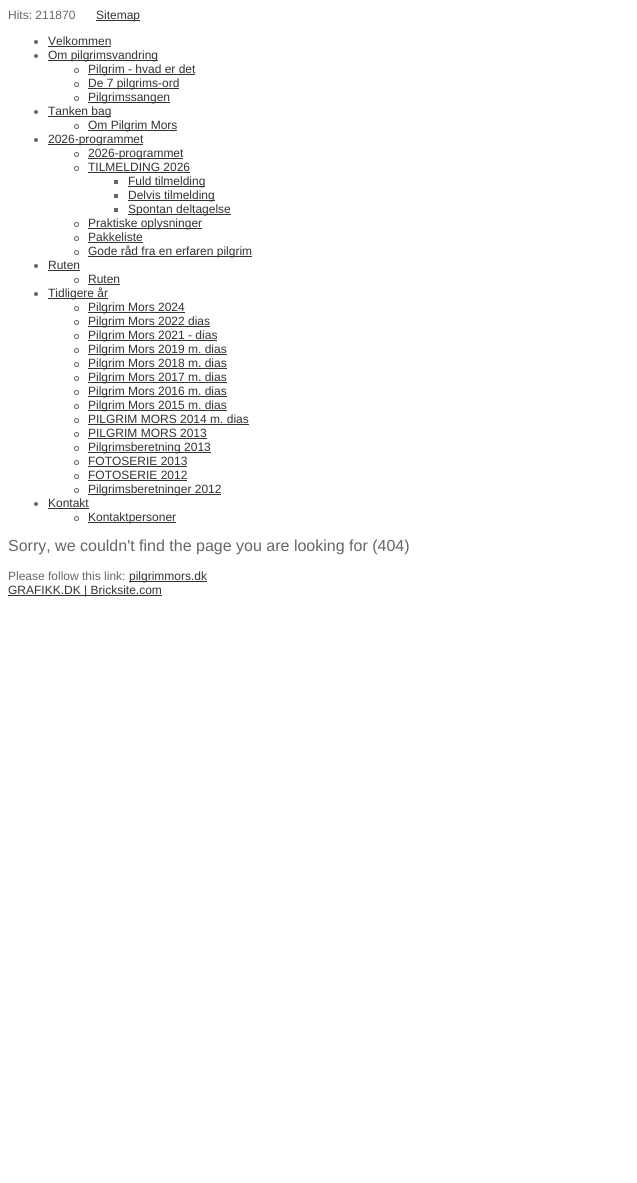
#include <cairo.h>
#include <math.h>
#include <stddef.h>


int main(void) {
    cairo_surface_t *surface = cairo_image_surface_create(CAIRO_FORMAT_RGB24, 637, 1183);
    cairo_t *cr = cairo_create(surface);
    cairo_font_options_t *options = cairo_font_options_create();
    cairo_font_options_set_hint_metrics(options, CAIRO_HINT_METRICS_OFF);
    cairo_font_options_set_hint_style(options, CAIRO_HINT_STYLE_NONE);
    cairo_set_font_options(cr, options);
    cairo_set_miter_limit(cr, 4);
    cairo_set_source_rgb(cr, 1, 1, 1);
    cairo_paint(cr);
    cairo_select_font_face(cr, "Liberation Sans", CAIRO_FONT_SLANT_NORMAL, CAIRO_FONT_WEIGHT_NORMAL);
    cairo_set_font_size(cr, 12);
    cairo_set_source_rgb(cr, 0.4, 0.4, 0.4);
    cairo_move_to(cr, 8, 19);
    cairo_show_text(cr, "Hits: 211870");
    cairo_set_source_rgb(cr, 0.2, 0.2, 0.2);
    cairo_rectangle(cr, 96, 20, 44, 1);
    cairo_fill(cr);
    cairo_move_to(cr, 96, 19);
    cairo_show_text(cr, "Sitemap");
    cairo_set_source_rgb(cr, 0.4, 0.4, 0.4);
    cairo_new_path(cr);
    cairo_arc(cr, 36, 42, 2, 0, 2 * M_PI);
    cairo_fill(cr);
    cairo_set_source_rgb(cr, 0.2, 0.2, 0.2);
    cairo_move_to(cr, 48, 45);
    cairo_show_text(cr, "Velkommen");
    cairo_rectangle(cr, 48, 46, 63, 1);
    cairo_fill(cr);
    cairo_set_source_rgb(cr, 0.4, 0.4, 0.4);
    cairo_arc(cr, 36, 56, 2, 0, 2 * M_PI);
    cairo_fill(cr);
    cairo_set_source_rgb(cr, 0.2, 0.2, 0.2);
    cairo_rectangle(cr, 48, 60, 110, 1);
    cairo_fill(cr);
    cairo_move_to(cr, 48, 59);
    cairo_show_text(cr, "Om pilgrimsvandring");
    cairo_new_path(cr);
    cairo_arc(cr, 76.5, 70.5, 2, 0, 2 * M_PI);
    cairo_set_source_rgb(cr, 0.4, 0.4, 0.4);
    cairo_set_line_width(cr, 1);
    cairo_stroke(cr);
    cairo_set_source_rgb(cr, 0.2, 0.2, 0.2);
    cairo_rectangle(cr, 88, 74, 107, 1);
    cairo_fill(cr);
    cairo_move_to(cr, 88, 73);
    cairo_show_text(cr, "Pilgrim - hvad er det");
    cairo_new_path(cr);
    cairo_arc(cr, 76.5, 84.5, 2, 0, 2 * M_PI);
    cairo_set_source_rgb(cr, 0.4, 0.4, 0.4);
    cairo_stroke(cr);
    cairo_set_source_rgb(cr, 0.2, 0.2, 0.2);
    cairo_rectangle(cr, 88, 88, 91, 1);
    cairo_fill(cr);
    cairo_move_to(cr, 88, 87);
    cairo_show_text(cr, "De 7 pilgrims-ord");
    cairo_new_path(cr);
    cairo_arc(cr, 76.5, 98.5, 2, 0, 2 * M_PI);
    cairo_set_source_rgb(cr, 0.4, 0.4, 0.4);
    cairo_stroke(cr);
    cairo_set_source_rgb(cr, 0.2, 0.2, 0.2);
    cairo_rectangle(cr, 88, 102, 82, 1);
    cairo_fill(cr);
    cairo_move_to(cr, 88, 101);
    cairo_show_text(cr, "Pilgrimssangen");
    cairo_set_source_rgb(cr, 0.4, 0.4, 0.4);
    cairo_new_path(cr);
    cairo_arc(cr, 36, 112, 2, 0, 2 * M_PI);
    cairo_fill(cr);
    cairo_set_source_rgb(cr, 0.2, 0.2, 0.2);
    cairo_rectangle(cr, 48, 116, 63, 1);
    cairo_fill(cr);
    cairo_move_to(cr, 48, 115);
    cairo_show_text(cr, "Tanken bag");
    cairo_new_path(cr);
    cairo_arc(cr, 76.5, 126.5, 2, 0, 2 * M_PI);
    cairo_set_source_rgb(cr, 0.4, 0.4, 0.4);
    cairo_stroke(cr);
    cairo_set_source_rgb(cr, 0.2, 0.2, 0.2);
    cairo_rectangle(cr, 88, 130, 89, 1);
    cairo_fill(cr);
    cairo_move_to(cr, 88, 129);
    cairo_show_text(cr, "Om Pilgrim Mors");
    cairo_set_source_rgb(cr, 0.4, 0.4, 0.4);
    cairo_new_path(cr);
    cairo_arc(cr, 36, 140, 2, 0, 2 * M_PI);
    cairo_fill(cr);
    cairo_set_source_rgb(cr, 0.2, 0.2, 0.2);
    cairo_rectangle(cr, 48, 144, 95, 1);
    cairo_fill(cr);
    cairo_move_to(cr, 48, 143);
    cairo_show_text(cr, "2026-programmet");
    cairo_new_path(cr);
    cairo_arc(cr, 76.5, 154.5, 2, 0, 2 * M_PI);
    cairo_set_source_rgb(cr, 0.4, 0.4, 0.4);
    cairo_stroke(cr);
    cairo_set_source_rgb(cr, 0.2, 0.2, 0.2);
    cairo_rectangle(cr, 88, 158, 95, 1);
    cairo_fill(cr);
    cairo_move_to(cr, 88, 157);
    cairo_show_text(cr, "2026-programmet");
    cairo_new_path(cr);
    cairo_arc(cr, 76.5, 168.5, 2, 0, 2 * M_PI);
    cairo_set_source_rgb(cr, 0.4, 0.4, 0.4);
    cairo_stroke(cr);
    cairo_set_source_rgb(cr, 0.2, 0.2, 0.2);
    cairo_move_to(cr, 88, 171);
    cairo_show_text(cr, "TILMELDING 2026");
    cairo_rectangle(cr, 88, 172, 102, 1);
    cairo_fill(cr);
    cairo_set_source_rgb(cr, 0.4, 0.4, 0.4);
    cairo_rectangle(cr, 114, 180, 4, 4);
    cairo_fill(cr);
    cairo_set_source_rgb(cr, 0.2, 0.2, 0.2);
    cairo_rectangle(cr, 128, 186, 77, 1);
    cairo_fill(cr);
    cairo_move_to(cr, 128, 185);
    cairo_show_text(cr, "Fuld tilmelding");
    cairo_set_source_rgb(cr, 0.4, 0.4, 0.4);
    cairo_rectangle(cr, 114, 194, 4, 4);
    cairo_fill(cr);
    cairo_set_source_rgb(cr, 0.2, 0.2, 0.2);
    cairo_rectangle(cr, 128, 200, 87, 1);
    cairo_fill(cr);
    cairo_move_to(cr, 128, 199);
    cairo_show_text(cr, "Delvis tilmelding");
    cairo_set_source_rgb(cr, 0.4, 0.4, 0.4);
    cairo_rectangle(cr, 114, 208, 4, 4);
    cairo_fill(cr);
    cairo_set_source_rgb(cr, 0.2, 0.2, 0.2);
    cairo_rectangle(cr, 128, 214, 103, 1);
    cairo_fill(cr);
    cairo_move_to(cr, 128, 213);
    cairo_show_text(cr, "Spontan deltagelse");
    cairo_new_path(cr);
    cairo_arc(cr, 76.5, 224.5, 2, 0, 2 * M_PI);
    cairo_set_source_rgb(cr, 0.4, 0.4, 0.4);
    cairo_stroke(cr);
    cairo_set_source_rgb(cr, 0.2, 0.2, 0.2);
    cairo_rectangle(cr, 88, 228, 114, 1);
    cairo_fill(cr);
    cairo_move_to(cr, 88, 227);
    cairo_show_text(cr, "Praktiske oplysninger");
    cairo_new_path(cr);
    cairo_arc(cr, 76.5, 238.5, 2, 0, 2 * M_PI);
    cairo_set_source_rgb(cr, 0.4, 0.4, 0.4);
    cairo_stroke(cr);
    cairo_set_source_rgb(cr, 0.2, 0.2, 0.2);
    cairo_move_to(cr, 88, 241);
    cairo_show_text(cr, "Pakkeliste");
    cairo_rectangle(cr, 88, 242, 55, 1);
    cairo_fill(cr);
    cairo_arc(cr, 76.5, 252.5, 2, 0, 2 * M_PI);
    cairo_set_source_rgb(cr, 0.4, 0.4, 0.4);
    cairo_stroke(cr);
    cairo_set_source_rgb(cr, 0.2, 0.2, 0.2);
    cairo_rectangle(cr, 88, 256, 164, 1);
    cairo_fill(cr);
    cairo_move_to(cr, 88, 255);
    cairo_show_text(cr, "Gode råd fra en erfaren pilgrim");
    cairo_set_source_rgb(cr, 0.4, 0.4, 0.4);
    cairo_new_path(cr);
    cairo_arc(cr, 36, 266, 2, 0, 2 * M_PI);
    cairo_fill(cr);
    cairo_set_source_rgb(cr, 0.2, 0.2, 0.2);
    cairo_move_to(cr, 48, 269);
    cairo_show_text(cr, "Ruten");
    cairo_rectangle(cr, 48, 270, 32, 1);
    cairo_fill(cr);
    cairo_arc(cr, 76.5, 280.5, 2, 0, 2 * M_PI);
    cairo_set_source_rgb(cr, 0.4, 0.4, 0.4);
    cairo_stroke(cr);
    cairo_set_source_rgb(cr, 0.2, 0.2, 0.2);
    cairo_move_to(cr, 88, 283);
    cairo_show_text(cr, "Ruten");
    cairo_rectangle(cr, 88, 284, 32, 1);
    cairo_fill(cr);
    cairo_set_source_rgb(cr, 0.4, 0.4, 0.4);
    cairo_arc(cr, 36, 294, 2, 0, 2 * M_PI);
    cairo_fill(cr);
    cairo_set_source_rgb(cr, 0.2, 0.2, 0.2);
    cairo_rectangle(cr, 48, 298, 60, 1);
    cairo_fill(cr);
    cairo_move_to(cr, 48, 297);
    cairo_show_text(cr, "Tidligere år");
    cairo_new_path(cr);
    cairo_arc(cr, 76.5, 308.5, 2, 0, 2 * M_PI);
    cairo_set_source_rgb(cr, 0.4, 0.4, 0.4);
    cairo_stroke(cr);
    cairo_set_source_rgb(cr, 0.2, 0.2, 0.2);
    cairo_rectangle(cr, 88, 312, 97, 1);
    cairo_fill(cr);
    cairo_move_to(cr, 88, 311);
    cairo_show_text(cr, "Pilgrim Mors 2024");
    cairo_new_path(cr);
    cairo_arc(cr, 76.5, 322.5, 2, 0, 2 * M_PI);
    cairo_set_source_rgb(cr, 0.4, 0.4, 0.4);
    cairo_stroke(cr);
    cairo_set_source_rgb(cr, 0.2, 0.2, 0.2);
    cairo_rectangle(cr, 88, 326, 122, 1);
    cairo_fill(cr);
    cairo_move_to(cr, 88, 325);
    cairo_show_text(cr, "Pilgrim Mors 2022 dias");
    cairo_new_path(cr);
    cairo_arc(cr, 76.5, 336.5, 2, 0, 2 * M_PI);
    cairo_set_source_rgb(cr, 0.4, 0.4, 0.4);
    cairo_stroke(cr);
    cairo_set_source_rgb(cr, 0.2, 0.2, 0.2);
    cairo_rectangle(cr, 88, 340, 129, 1);
    cairo_fill(cr);
    cairo_move_to(cr, 88, 339);
    cairo_show_text(cr, "Pilgrim Mors 2021 - dias");
    cairo_new_path(cr);
    cairo_arc(cr, 76.5, 350.5, 2, 0, 2 * M_PI);
    cairo_set_source_rgb(cr, 0.4, 0.4, 0.4);
    cairo_stroke(cr);
    cairo_set_source_rgb(cr, 0.2, 0.2, 0.2);
    cairo_rectangle(cr, 88, 354, 139, 1);
    cairo_fill(cr);
    cairo_move_to(cr, 88, 353);
    cairo_show_text(cr, "Pilgrim Mors 2019 m. dias");
    cairo_new_path(cr);
    cairo_arc(cr, 76.5, 364.5, 2, 0, 2 * M_PI);
    cairo_set_source_rgb(cr, 0.4, 0.4, 0.4);
    cairo_stroke(cr);
    cairo_set_source_rgb(cr, 0.2, 0.2, 0.2);
    cairo_rectangle(cr, 88, 368, 139, 1);
    cairo_fill(cr);
    cairo_move_to(cr, 88, 367);
    cairo_show_text(cr, "Pilgrim Mors 2018 m. dias");
    cairo_new_path(cr);
    cairo_arc(cr, 76.5, 378.5, 2, 0, 2 * M_PI);
    cairo_set_source_rgb(cr, 0.4, 0.4, 0.4);
    cairo_stroke(cr);
    cairo_set_source_rgb(cr, 0.2, 0.2, 0.2);
    cairo_rectangle(cr, 88, 382, 139, 1);
    cairo_fill(cr);
    cairo_move_to(cr, 88, 381);
    cairo_show_text(cr, "Pilgrim Mors 2017 m. dias");
    cairo_new_path(cr);
    cairo_arc(cr, 76.5, 392.5, 2, 0, 2 * M_PI);
    cairo_set_source_rgb(cr, 0.4, 0.4, 0.4);
    cairo_stroke(cr);
    cairo_set_source_rgb(cr, 0.2, 0.2, 0.2);
    cairo_rectangle(cr, 88, 396, 139, 1);
    cairo_fill(cr);
    cairo_move_to(cr, 88, 395);
    cairo_show_text(cr, "Pilgrim Mors 2016 m. dias");
    cairo_new_path(cr);
    cairo_arc(cr, 76.5, 406.5, 2, 0, 2 * M_PI);
    cairo_set_source_rgb(cr, 0.4, 0.4, 0.4);
    cairo_stroke(cr);
    cairo_set_source_rgb(cr, 0.2, 0.2, 0.2);
    cairo_rectangle(cr, 88, 410, 139, 1);
    cairo_fill(cr);
    cairo_move_to(cr, 88, 409);
    cairo_show_text(cr, "Pilgrim Mors 2015 m. dias");
    cairo_new_path(cr);
    cairo_arc(cr, 76.5, 420.5, 2, 0, 2 * M_PI);
    cairo_set_source_rgb(cr, 0.4, 0.4, 0.4);
    cairo_stroke(cr);
    cairo_set_source_rgb(cr, 0.2, 0.2, 0.2);
    cairo_move_to(cr, 88, 423);
    cairo_show_text(cr, "PILGRIM MORS 2014 m. dias");
    cairo_rectangle(cr, 88, 424, 161, 1);
    cairo_fill(cr);
    cairo_arc(cr, 76.5, 434.5, 2, 0, 2 * M_PI);
    cairo_set_source_rgb(cr, 0.4, 0.4, 0.4);
    cairo_stroke(cr);
    cairo_set_source_rgb(cr, 0.2, 0.2, 0.2);
    cairo_move_to(cr, 88, 437);
    cairo_show_text(cr, "PILGRIM MORS 2013");
    cairo_rectangle(cr, 88, 438, 119, 1);
    cairo_fill(cr);
    cairo_arc(cr, 76.5, 448.5, 2, 0, 2 * M_PI);
    cairo_set_source_rgb(cr, 0.4, 0.4, 0.4);
    cairo_stroke(cr);
    cairo_set_source_rgb(cr, 0.2, 0.2, 0.2);
    cairo_rectangle(cr, 88, 452, 123, 1);
    cairo_fill(cr);
    cairo_move_to(cr, 88, 451);
    cairo_show_text(cr, "Pilgrimsberetning 2013");
    cairo_new_path(cr);
    cairo_arc(cr, 76.5, 462.5, 2, 0, 2 * M_PI);
    cairo_set_source_rgb(cr, 0.4, 0.4, 0.4);
    cairo_stroke(cr);
    cairo_set_source_rgb(cr, 0.2, 0.2, 0.2);
    cairo_move_to(cr, 88, 465);
    cairo_show_text(cr, "FOTOSERIE 2013");
    cairo_rectangle(cr, 88, 466, 99, 1);
    cairo_fill(cr);
    cairo_arc(cr, 76.5, 476.5, 2, 0, 2 * M_PI);
    cairo_set_source_rgb(cr, 0.4, 0.4, 0.4);
    cairo_stroke(cr);
    cairo_set_source_rgb(cr, 0.2, 0.2, 0.2);
    cairo_move_to(cr, 88, 479);
    cairo_show_text(cr, "FOTOSERIE 2012");
    cairo_rectangle(cr, 88, 480, 99, 1);
    cairo_fill(cr);
    cairo_arc(cr, 76.5, 490.5, 2, 0, 2 * M_PI);
    cairo_set_source_rgb(cr, 0.4, 0.4, 0.4);
    cairo_stroke(cr);
    cairo_set_source_rgb(cr, 0.2, 0.2, 0.2);
    cairo_rectangle(cr, 88, 494, 133, 1);
    cairo_fill(cr);
    cairo_move_to(cr, 88, 493);
    cairo_show_text(cr, "Pilgrimsberetninger 2012");
    cairo_set_source_rgb(cr, 0.4, 0.4, 0.4);
    cairo_new_path(cr);
    cairo_arc(cr, 36, 504, 2, 0, 2 * M_PI);
    cairo_fill(cr);
    cairo_set_source_rgb(cr, 0.2, 0.2, 0.2);
    cairo_move_to(cr, 48, 507);
    cairo_show_text(cr, "Kontakt");
    cairo_rectangle(cr, 48, 508, 41, 1);
    cairo_fill(cr);
    cairo_arc(cr, 76.5, 518.5, 2, 0, 2 * M_PI);
    cairo_set_source_rgb(cr, 0.4, 0.4, 0.4);
    cairo_stroke(cr);
    cairo_set_source_rgb(cr, 0.2, 0.2, 0.2);
    cairo_rectangle(cr, 88, 522, 88, 1);
    cairo_fill(cr);
    cairo_move_to(cr, 88, 521);
    cairo_show_text(cr, "Kontaktpersoner");
    cairo_set_font_size(cr, 16);
    cairo_set_source_rgb(cr, 0.4, 0.4, 0.4);
    cairo_move_to(cr, 8, 551);
    cairo_show_text(cr, "Sorry, we couldn't find the page you are looking for (404)");
    cairo_set_font_size(cr, 12);
    cairo_move_to(cr, 8, 580);
    cairo_show_text(cr, "Please follow this link:");
    cairo_set_source_rgb(cr, 0.2, 0.2, 0.2);
    cairo_rectangle(cr, 129, 581, 78, 1);
    cairo_fill(cr);
    cairo_move_to(cr, 129, 580);
    cairo_show_text(cr, "pilgrimmors.dk");
    cairo_rectangle(cr, 8, 595, 154, 1);
    cairo_fill(cr);
    cairo_move_to(cr, 8, 594);
    cairo_show_text(cr, "GRAFIKK.DK | Bricksite.com");
    cairo_surface_write_to_png(surface, "page.png");
    cairo_font_options_destroy(options);
    cairo_destroy(cr);
    cairo_surface_destroy(surface);
    return 0;
}
